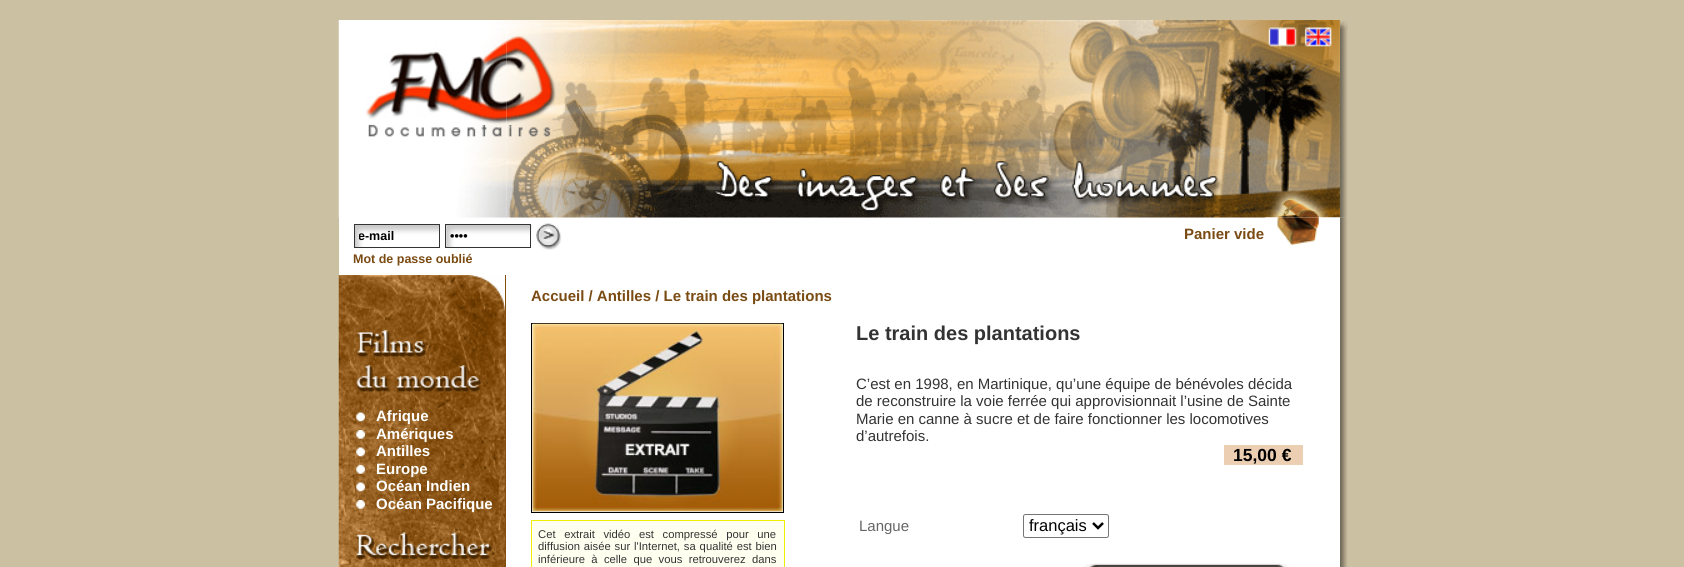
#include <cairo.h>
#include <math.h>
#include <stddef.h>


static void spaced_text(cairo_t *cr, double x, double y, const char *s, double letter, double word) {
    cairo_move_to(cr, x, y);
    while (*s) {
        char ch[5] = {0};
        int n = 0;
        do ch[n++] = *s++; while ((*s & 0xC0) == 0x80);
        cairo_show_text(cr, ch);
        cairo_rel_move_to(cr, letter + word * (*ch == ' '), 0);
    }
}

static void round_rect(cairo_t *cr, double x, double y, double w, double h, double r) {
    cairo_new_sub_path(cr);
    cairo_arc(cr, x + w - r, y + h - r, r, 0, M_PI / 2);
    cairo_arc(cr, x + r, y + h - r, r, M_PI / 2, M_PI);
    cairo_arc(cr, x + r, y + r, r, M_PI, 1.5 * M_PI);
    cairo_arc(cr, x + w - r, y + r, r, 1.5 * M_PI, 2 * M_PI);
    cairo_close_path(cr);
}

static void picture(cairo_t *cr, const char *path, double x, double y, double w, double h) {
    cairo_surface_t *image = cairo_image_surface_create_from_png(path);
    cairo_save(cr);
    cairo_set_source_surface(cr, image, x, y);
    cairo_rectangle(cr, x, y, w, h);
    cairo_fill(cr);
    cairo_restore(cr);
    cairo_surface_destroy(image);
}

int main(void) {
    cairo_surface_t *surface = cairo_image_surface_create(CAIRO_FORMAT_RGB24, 1684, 567);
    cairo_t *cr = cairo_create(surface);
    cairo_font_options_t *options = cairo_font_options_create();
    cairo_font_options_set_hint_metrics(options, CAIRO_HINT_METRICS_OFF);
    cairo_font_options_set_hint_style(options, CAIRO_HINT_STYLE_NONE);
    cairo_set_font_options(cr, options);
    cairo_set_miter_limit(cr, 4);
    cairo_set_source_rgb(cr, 0.8, 0.753, 0.639);
    cairo_paint(cr);
    cairo_set_source_rgb(cr, 1, 1, 1);
    cairo_rectangle(cr, 339, 20, 1001, 547);
    cairo_fill(cr);
    picture(cr, "img1.png", 338, 20, 169, 198);
    picture(cr, "img2.png", 506, 20, 49, 198);
    picture(cr, "img3.png", 555, 20, 710, 198);
    picture(cr, "img4.png", 1265, 20, 75, 198);
    picture(cr, "img5.png", 1340, 20, 8, 198);
    picture(cr, "img6.png", 1340, 20, 8, 9);
    picture(cr, "img7.png", 355, 225, 84, 22);
    cairo_rectangle(cr, 354.5, 224.5, 85, 23);
    cairo_set_source_rgb(cr, 0.2, 0.2, 0.2);
    cairo_set_line_width(cr, 1);
    cairo_stroke(cr);
    cairo_save(cr);
    cairo_rectangle(cr, 359, 229, 76, 14);
    cairo_clip(cr);
    cairo_select_font_face(cr, "Liberation Sans", CAIRO_FONT_SLANT_NORMAL, CAIRO_FONT_WEIGHT_BOLD);
    cairo_set_font_size(cr, 12.5);
    cairo_set_source_rgb(cr, 0, 0, 0);
    cairo_move_to(cr, 358, 240);
    cairo_show_text(cr, "e-mail");
    cairo_restore(cr);
    picture(cr, "img8.png", 446, 225, 86, 23);
    cairo_rectangle(cr, 445.5, 224.5, 85, 23);
    cairo_stroke(cr);
    cairo_select_font_face(cr, "Liberation Sans", CAIRO_FONT_SLANT_NORMAL, CAIRO_FONT_WEIGHT_BOLD);
    cairo_set_font_size(cr, 12.5);
    cairo_set_source_rgb(cr, 0, 0, 0);
    cairo_move_to(cr, 450, 240);
    cairo_show_text(cr, "••••");
    picture(cr, "img9.png", 536, 223, 26, 27);
    cairo_set_source_rgb(cr, 0.478, 0.294, 0.075);
    cairo_move_to(cr, 353, 263);
    cairo_show_text(cr, "Mot de passe oublié");
    cairo_set_font_size(cr, 15);
    cairo_move_to(cr, 1184, 239);
    cairo_show_text(cr, "Panier vide");
    picture(cr, "img10.png", 1265, 217, 75, 28);
    picture(cr, "img11.png", 1340, 217, 8, 58);
    cairo_set_source_rgb(cr, 0.514, 0.306, 0.063);
    cairo_rectangle(cr, 505, 275, 1, 292);
    cairo_fill(cr);
    picture(cr, "img12.png", 338, 275, 167, 292);
    picture(cr, "img13.png", 356, 330, 126, 63);
    picture(cr, "img14.png", 356, 412, 9, 10);
    cairo_set_source_rgb(cr, 1, 1, 1);
    cairo_move_to(cr, 376, 421);
    cairo_show_text(cr, "Afrique");
    picture(cr, "img15.png", 356, 430, 9, 9);
    cairo_move_to(cr, 376, 439);
    cairo_show_text(cr, "Amériques");
    picture(cr, "img16.png", 356, 447, 9, 10);
    cairo_move_to(cr, 376, 456);
    cairo_show_text(cr, "Antilles");
    picture(cr, "img17.png", 356, 465, 9, 9);
    cairo_move_to(cr, 376, 474);
    cairo_show_text(cr, "Europe");
    picture(cr, "img18.png", 356, 482, 9, 10);
    cairo_move_to(cr, 376, 491);
    cairo_show_text(cr, "Océan Indien");
    picture(cr, "img19.png", 356, 500, 9, 9);
    cairo_move_to(cr, 376, 509);
    cairo_show_text(cr, "Océan Pacifique");
    picture(cr, "img20.png", 356, 532, 137, 28);
    cairo_set_source_rgb(cr, 0.478, 0.294, 0.075);
    cairo_move_to(cr, 531, 301);
    cairo_show_text(cr, "Accueil / Antilles / Le train des plantations");
    cairo_set_font_size(cr, 20);
    cairo_set_source_rgb(cr, 0.2, 0.2, 0.2);
    cairo_move_to(cr, 856, 340);
    cairo_show_text(cr, "Le train des plantations");
    cairo_select_font_face(cr, "Liberation Sans", CAIRO_FONT_SLANT_NORMAL, CAIRO_FONT_WEIGHT_NORMAL);
    cairo_set_font_size(cr, 15);
    cairo_move_to(cr, 856, 389);
    cairo_show_text(cr, "C’est en 1998, en Martinique, qu’une équipe de bénévoles décida");
    cairo_move_to(cr, 856, 406);
    cairo_show_text(cr, "de reconstruire la voie ferrée qui approvisionnait l’usine de Sainte");
    cairo_move_to(cr, 856, 424);
    cairo_show_text(cr, "Marie en canne à sucre et de faire fonctionner les locomotives");
    cairo_move_to(cr, 856, 441);
    cairo_show_text(cr, "d’autrefois.");
    cairo_set_source_rgb(cr, 0.922, 0.812, 0.702);
    cairo_rectangle(cr, 1224, 445, 79, 20);
    cairo_fill(cr);
    cairo_select_font_face(cr, "Liberation Sans", CAIRO_FONT_SLANT_NORMAL, CAIRO_FONT_WEIGHT_BOLD);
    cairo_set_font_size(cr, 17.5);
    cairo_set_source_rgb(cr, 0, 0, 0);
    cairo_move_to(cr, 1233, 461);
    cairo_show_text(cr, "15,00 €");
    cairo_select_font_face(cr, "Liberation Sans", CAIRO_FONT_SLANT_NORMAL, CAIRO_FONT_WEIGHT_NORMAL);
    cairo_set_font_size(cr, 15);
    cairo_set_source_rgb(cr, 0.4, 0.4, 0.4);
    cairo_move_to(cr, 859, 531);
    cairo_show_text(cr, "Langue");
    round_rect(cr, 1023.5, 514.5, 85, 23, 2);
    cairo_set_source_rgb(cr, 0.463, 0.463, 0.463);
    cairo_stroke(cr);
    cairo_new_path(cr);
    cairo_move_to(cr, 1093, 523);
    cairo_line_to(cr, 1098, 528);
    cairo_line_to(cr, 1103, 523);
    cairo_set_source_rgb(cr, 0, 0, 0);
    cairo_set_line_width(cr, 2.5);
    cairo_stroke(cr);
    cairo_set_font_size(cr, 16.5);
    cairo_move_to(cr, 1029, 531);
    cairo_show_text(cr, "français");
    picture(cr, "img21.png", 1084, 563, 205, 4);
    cairo_set_source_rgb(cr, 0.933, 0.933, 0.933);
    cairo_rectangle(cr, 531.5, 323.5, 252, 189);
    cairo_fill_preserve(cr);
    cairo_set_source_rgb(cr, 0, 0, 0);
    cairo_set_line_width(cr, 1);
    cairo_stroke(cr);
    picture(cr, "img22.png", 532, 323, 251, 189);
    cairo_set_source_rgb(cr, 1, 1, 0.941);
    cairo_rectangle(cr, 531.5, 520.5, 253, 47);
    cairo_fill_preserve(cr);
    cairo_set_source_rgb(cr, 0.929, 0.933, 0);
    cairo_stroke(cr);
    cairo_set_font_size(cr, 11.25);
    cairo_set_source_rgb(cr, 0.2, 0.2, 0.2);
    spaced_text(cr, 538, 538, "Cet extrait vidéo est compressé pour une", 0, 5.5);
    spaced_text(cr, 538, 550, "diffusion aisée sur l'Internet, sa qualité est bien", 0, 0.75);
    spaced_text(cr, 538, 563, "inférieure à celle que vous retrouverez dans", 0, 3.25);
    picture(cr, "img23.png", 1340, 275, 8, 292);
    cairo_surface_write_to_png(surface, "page.png");
    cairo_font_options_destroy(options);
    cairo_destroy(cr);
    cairo_surface_destroy(surface);
    return 0;
}
